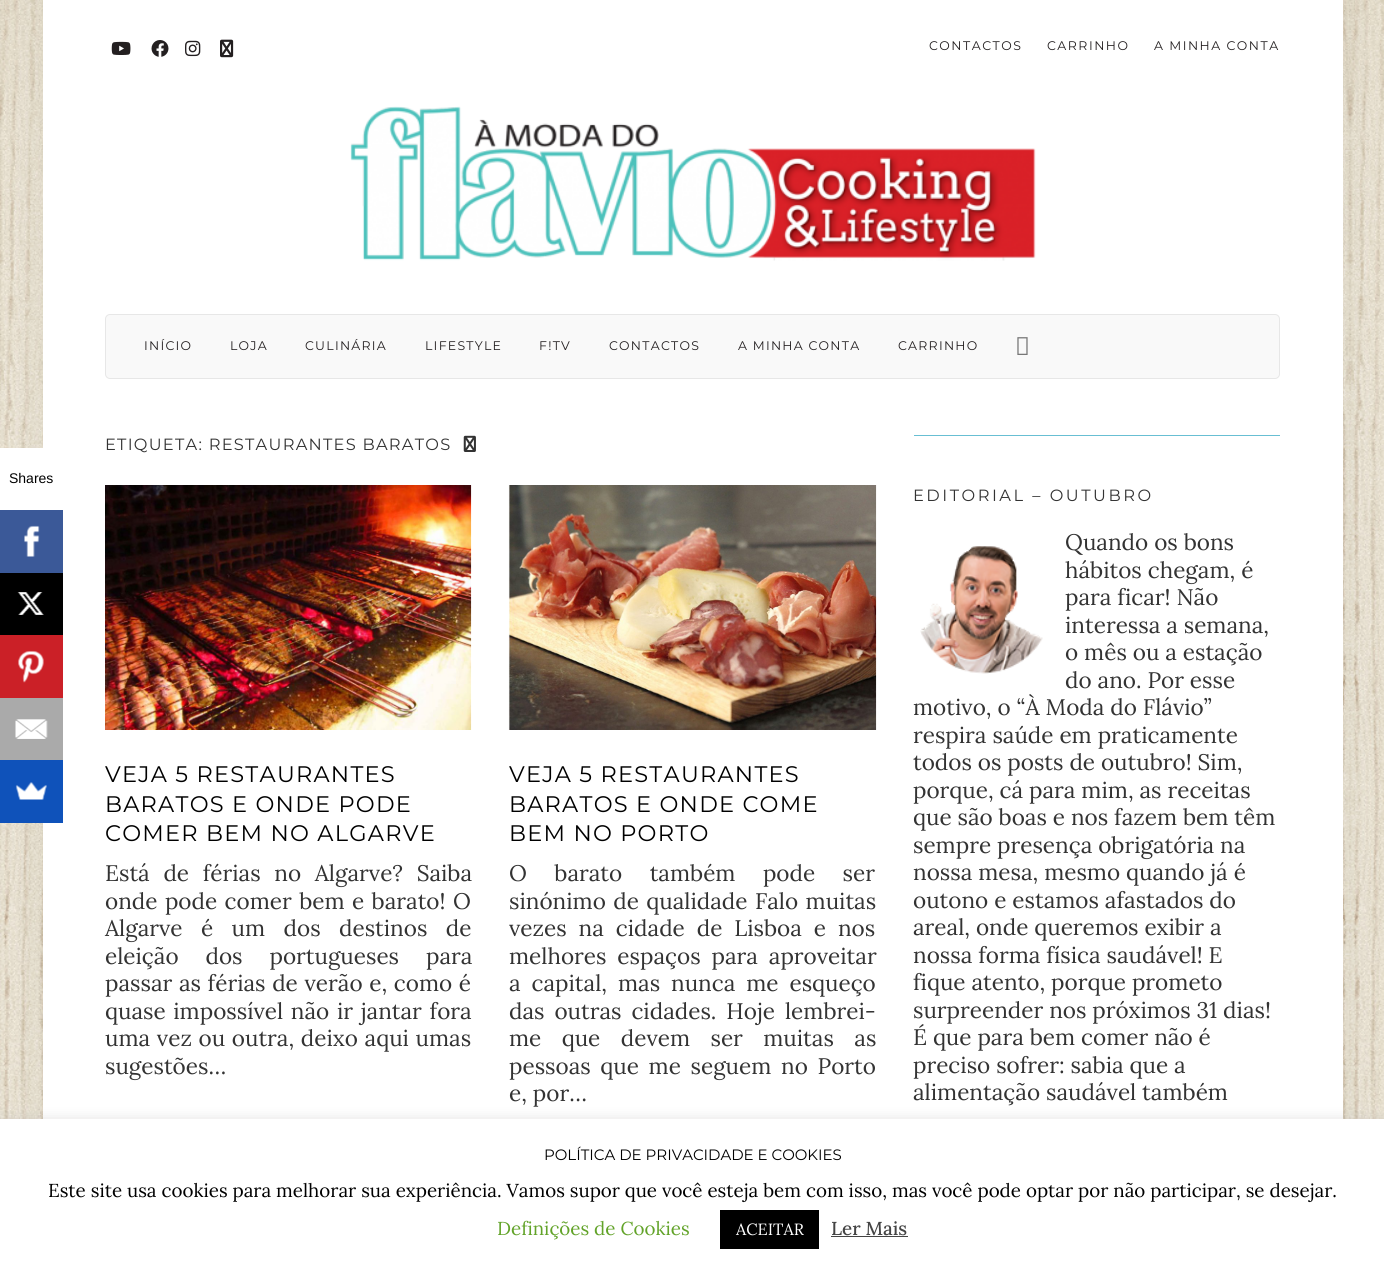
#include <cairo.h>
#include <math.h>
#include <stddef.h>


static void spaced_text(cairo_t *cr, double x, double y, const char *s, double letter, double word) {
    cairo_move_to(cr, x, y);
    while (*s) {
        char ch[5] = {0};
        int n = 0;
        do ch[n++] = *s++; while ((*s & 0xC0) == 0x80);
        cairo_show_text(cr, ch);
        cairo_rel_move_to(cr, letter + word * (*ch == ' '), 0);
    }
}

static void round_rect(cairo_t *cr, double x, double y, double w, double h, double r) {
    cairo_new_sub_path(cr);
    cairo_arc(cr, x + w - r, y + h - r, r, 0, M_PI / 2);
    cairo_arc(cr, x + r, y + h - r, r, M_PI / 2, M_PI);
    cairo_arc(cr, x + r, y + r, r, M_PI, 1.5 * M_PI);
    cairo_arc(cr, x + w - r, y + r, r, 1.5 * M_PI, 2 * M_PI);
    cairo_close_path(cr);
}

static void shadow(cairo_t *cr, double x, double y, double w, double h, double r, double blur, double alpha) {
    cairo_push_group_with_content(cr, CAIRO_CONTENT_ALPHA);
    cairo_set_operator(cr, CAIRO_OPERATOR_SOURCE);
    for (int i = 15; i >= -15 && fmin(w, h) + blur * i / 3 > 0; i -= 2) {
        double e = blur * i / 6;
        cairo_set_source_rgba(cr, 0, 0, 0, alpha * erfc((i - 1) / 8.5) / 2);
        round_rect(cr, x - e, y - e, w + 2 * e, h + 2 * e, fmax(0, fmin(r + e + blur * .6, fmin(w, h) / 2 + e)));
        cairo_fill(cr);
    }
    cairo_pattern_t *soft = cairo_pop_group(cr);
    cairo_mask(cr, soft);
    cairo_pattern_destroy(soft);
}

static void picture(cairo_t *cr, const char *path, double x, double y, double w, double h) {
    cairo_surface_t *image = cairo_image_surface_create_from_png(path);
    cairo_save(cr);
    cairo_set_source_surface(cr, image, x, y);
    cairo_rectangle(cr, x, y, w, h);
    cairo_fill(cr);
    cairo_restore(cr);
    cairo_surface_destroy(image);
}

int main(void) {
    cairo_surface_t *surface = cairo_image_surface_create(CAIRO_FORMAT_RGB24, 1384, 1270);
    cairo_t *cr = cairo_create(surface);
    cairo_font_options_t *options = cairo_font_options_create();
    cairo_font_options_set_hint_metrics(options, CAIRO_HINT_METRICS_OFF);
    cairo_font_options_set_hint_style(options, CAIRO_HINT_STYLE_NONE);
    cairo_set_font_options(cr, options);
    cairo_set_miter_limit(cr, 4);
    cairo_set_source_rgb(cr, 1, 1, 1);
    cairo_paint(cr);
    picture(cr, "img1.png", 0, 0, 1384, 1119);
    cairo_set_source_rgb(cr, 0, 0, 0);
    shadow(cr, 43, 0, 1300, 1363, 0, 31, 0.06);
    cairo_set_source_rgb(cr, 1, 1, 1);
    cairo_rectangle(cr, 0, 448, 43, 62);
    cairo_fill(cr);
    cairo_rectangle(cr, 43, 0, 1300, 1119);
    cairo_fill(cr);
    cairo_select_font_face(cr, "Liberation Sans", CAIRO_FONT_SLANT_NORMAL, CAIRO_FONT_WEIGHT_NORMAL);
    cairo_set_font_size(cr, 14);
    cairo_set_source_rgb(cr, 0, 0, 0);
    cairo_move_to(cr, 9, 483);
    cairo_show_text(cr, "Shares");
    cairo_set_source_rgb(cr, 0.231, 0.349, 0.596);
    cairo_rectangle(cr, 0, 510, 63, 63);
    cairo_fill(cr);
    picture(cr, "img2.png", 24, 525, 16, 32);
    cairo_set_source_rgb(cr, 0, 0, 0);
    cairo_rectangle(cr, 0, 573, 63, 62);
    cairo_fill(cr);
    picture(cr, "img3.png", 17, 592, 27, 23);
    cairo_set_source_rgb(cr, 0.796, 0.125, 0.153);
    cairo_rectangle(cr, 0, 635, 63, 63);
    cairo_fill(cr);
    picture(cr, "img4.png", 18, 650, 26, 33);
    cairo_set_source_rgb(cr, 0.667, 0.667, 0.667);
    cairo_rectangle(cr, 0, 698, 63, 62);
    cairo_fill(cr);
    picture(cr, "img5.png", 15, 719, 33, 20);
    cairo_set_source_rgb(cr, 0.059, 0.322, 0.729);
    cairo_rectangle(cr, 0, 760, 63, 63);
    cairo_fill(cr);
    picture(cr, "img6.png", 15, 782, 32, 18);
    picture(cr, "img7.png", 111, 41, 20, 14);
    picture(cr, "img8.png", 151, 40, 18, 17);
    picture(cr, "img9.png", 185, 40, 16, 17);
    picture(cr, "img10.png", 220, 39, 14, 19);
    cairo_select_font_face(cr, "Montserrat", CAIRO_FONT_SLANT_NORMAL, CAIRO_FONT_WEIGHT_NORMAL);
    cairo_set_font_size(cr, 12.5);
    cairo_set_source_rgb(cr, 0.137, 0.122, 0.125);
    spaced_text(cr, 929, 50, "CONTACTOS", 1.5, 0);
    spaced_text(cr, 1047, 50, "CARRINHO", 1.5, 0);
    spaced_text(cr, 1154, 50, "A MINHA CONTA", 1.5, 0);
    picture(cr, "img11.png", 350, 106, 686, 155);
    cairo_set_source_rgb(cr, 0.973, 0.973, 0.973);
    round_rect(cr, 105.5, 314.5, 1174, 64, 4.5);
    cairo_fill_preserve(cr);
    cairo_set_source_rgb(cr, 0.906, 0.906, 0.906);
    cairo_set_line_width(cr, 1);
    cairo_stroke(cr);
    cairo_set_source_rgb(cr, 0.137, 0.122, 0.125);
    spaced_text(cr, 144, 350, "INÍCIO", 1.25, 0);
    spaced_text(cr, 230, 350, "LOJA", 1.25, 0);
    spaced_text(cr, 305, 350, "CULINÁRIA", 1.25, 0);
    spaced_text(cr, 425, 350, "LIFESTYLE", 1.25, 0);
    spaced_text(cr, 539, 350, "F!TV", 1.25, 0);
    spaced_text(cr, 609, 350, "CONTACTOS", 1.25, 0);
    spaced_text(cr, 738, 350, "A MINHA CONTA", 1.25, 0);
    spaced_text(cr, 898, 350, "CARRINHO", 1.25, 0);
    picture(cr, "img12.png", 1017, 337, 11, 18);
    cairo_set_font_size(cr, 16.25);
    cairo_set_source_rgb(cr, 0.2, 0.2, 0.2);
    spaced_text(cr, 105, 450, "ETIQUETA: RESTAURANTES BARATOS", 1.25, 0);
    picture(cr, "img13.png", 463, 435, 13, 17);
    picture(cr, "img14.png", 105, 485, 367, 245);
    cairo_set_font_size(cr, 22.5);
    cairo_set_source_rgb(cr, 0, 0, 0);
    spaced_text(cr, 105, 782, "VEJA 5 RESTAURANTES", 1.25, 0);
    spaced_text(cr, 105, 812, "BARATOS E ONDE PODE", 1.25, 0);
    spaced_text(cr, 105, 841, "COMER BEM NO ALGARVE", 1.25, 0);
    cairo_select_font_face(cr, "Lora", CAIRO_FONT_SLANT_NORMAL, CAIRO_FONT_WEIGHT_NORMAL);
    cairo_set_source_rgb(cr, 0.2, 0.2, 0.2);
    spaced_text(cr, 105, 881, "Está de férias no Algarve? Saiba", 0, 7.75);
    spaced_text(cr, 105, 909, "onde pode comer bem e barato! O", 0, 1.5);
    spaced_text(cr, 105, 936, "Algarve é um dos destinos de", 0, 12.5);
    spaced_text(cr, 105, 964, "eleição dos portugueses para", 0, 21);
    spaced_text(cr, 105, 991, "passar as férias de verão e, como é", 0, 0.75);
    spaced_text(cr, 105, 1019, "quase impossível não ir jantar fora", 0, 1.75);
    spaced_text(cr, 105, 1046, "uma vez ou outra, deixo aqui umas", 0, 0.75);
    cairo_move_to(cr, 105, 1074);
    cairo_show_text(cr, "sugestões…");
    picture(cr, "img15.png", 508, 485, 369, 245);
    cairo_select_font_face(cr, "Montserrat", CAIRO_FONT_SLANT_NORMAL, CAIRO_FONT_WEIGHT_NORMAL);
    cairo_set_source_rgb(cr, 0, 0, 0);
    spaced_text(cr, 509, 782, "VEJA 5 RESTAURANTES", 1.25, 0);
    spaced_text(cr, 509, 812, "BARATOS E ONDE COME", 1.25, 0);
    spaced_text(cr, 509, 841, "BEM NO PORTO", 1.25, 0);
    cairo_select_font_face(cr, "Lora", CAIRO_FONT_SLANT_NORMAL, CAIRO_FONT_WEIGHT_NORMAL);
    cairo_set_source_rgb(cr, 0.2, 0.2, 0.2);
    spaced_text(cr, 509, 881, "O barato também pode ser", 0, 21.5);
    spaced_text(cr, 509, 909, "sinónimo de qualidade Falo muitas", 0, 1.5);
    spaced_text(cr, 509, 936, "vezes na cidade de Lisboa e nos", 0, 6);
    spaced_text(cr, 509, 964, "melhores espaços para aproveitar", 0, 5);
    spaced_text(cr, 509, 991, "a capital, mas nunca me esqueço", 0, 5);
    spaced_text(cr, 509, 1019, "das outras cidades. Hoje lembrei-", 0, 4);
    spaced_text(cr, 509, 1046, "me que devem ser muitas as", 0, 14.5);
    spaced_text(cr, 509, 1074, "pessoas que me seguem no Porto", 0, 3.75);
    cairo_move_to(cr, 509, 1101);
    cairo_show_text(cr, "e, por…");
    cairo_set_source_rgb(cr, 0.408, 0.749, 0.827);
    cairo_rectangle(cr, 914, 435, 366, 1);
    cairo_fill(cr);
    cairo_select_font_face(cr, "Montserrat", CAIRO_FONT_SLANT_NORMAL, CAIRO_FONT_WEIGHT_NORMAL);
    cairo_set_font_size(cr, 16.25);
    cairo_set_source_rgb(cr, 0.2, 0.2, 0.2);
    spaced_text(cr, 913, 501, "EDITORIAL – OUTUBRO", 2.5, 0);
    cairo_select_font_face(cr, "Lora", CAIRO_FONT_SLANT_NORMAL, CAIRO_FONT_WEIGHT_NORMAL);
    cairo_set_font_size(cr, 22.5);
    cairo_move_to(cr, 1065, 550);
    cairo_show_text(cr, "Quando os bons");
    cairo_move_to(cr, 1065, 578);
    cairo_show_text(cr, "hábitos chegam, é");
    cairo_move_to(cr, 1065, 605);
    cairo_show_text(cr, "para ficar! Não");
    cairo_move_to(cr, 1065, 633);
    cairo_show_text(cr, "interessa a semana,");
    cairo_move_to(cr, 1065, 660);
    cairo_show_text(cr, "o mês ou a estação");
    cairo_move_to(cr, 1065, 688);
    cairo_show_text(cr, "do ano. Por esse");
    cairo_move_to(cr, 913, 715);
    cairo_show_text(cr, "motivo, o “À Moda do Flávio”");
    cairo_move_to(cr, 913, 743);
    cairo_show_text(cr, "respira saúde em praticamente");
    cairo_move_to(cr, 913, 770);
    cairo_show_text(cr, "todos os posts de outubro! Sim,");
    cairo_move_to(cr, 913, 798);
    cairo_show_text(cr, "porque, cá para mim, as receitas");
    cairo_move_to(cr, 913, 825);
    cairo_show_text(cr, "que são boas e nos fazem bem têm");
    cairo_move_to(cr, 913, 853);
    cairo_show_text(cr, "sempre presença obrigatória na");
    cairo_move_to(cr, 913, 880);
    cairo_show_text(cr, "nossa mesa, mesmo quando já é");
    cairo_move_to(cr, 913, 908);
    cairo_show_text(cr, "outono e estamos afastados do");
    cairo_move_to(cr, 913, 935);
    cairo_show_text(cr, "areal, onde queremos exibir a");
    cairo_move_to(cr, 913, 963);
    cairo_show_text(cr, "nossa forma física saudável! E");
    cairo_move_to(cr, 913, 990);
    cairo_show_text(cr, "fique atento, porque prometo");
    cairo_move_to(cr, 913, 1018);
    cairo_show_text(cr, "surpreender nos próximos 31 dias!");
    cairo_move_to(cr, 913, 1045);
    cairo_show_text(cr, "É que para bem comer não é");
    cairo_move_to(cr, 913, 1073);
    cairo_show_text(cr, "preciso sofrer: sabia que a");
    cairo_move_to(cr, 913, 1100);
    cairo_show_text(cr, "alimentação saudável também");
    picture(cr, "img16.png", 920, 546, 123, 128);
    cairo_set_source_rgb(cr, 0.675, 0.671, 0.671);
    shadow(cr, 0, 1118, 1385, 151, 0, 6, 0.3);
    cairo_set_source_rgb(cr, 1, 1, 1);
    cairo_rectangle(cr, 0, 1119, 1384, 151);
    cairo_fill(cr);
    cairo_select_font_face(cr, "Montserrat", CAIRO_FONT_SLANT_NORMAL, CAIRO_FONT_WEIGHT_NORMAL);
    cairo_set_font_size(cr, 15);
    cairo_set_source_rgb(cr, 0, 0, 0);
    cairo_move_to(cr, 544, 1160);
    cairo_show_text(cr, "POLÍTICA DE PRIVACIDADE E COOKIES");
    cairo_select_font_face(cr, "Lora", CAIRO_FONT_SLANT_NORMAL, CAIRO_FONT_WEIGHT_NORMAL);
    cairo_set_font_size(cr, 18.75);
    cairo_move_to(cr, 48, 1197);
    cairo_show_text(cr, "Este site usa cookies para melhorar sua experiência. Vamos supor que você esteja bem com isso, mas você pode optar por não participar, se desejar.");
    cairo_set_source_rgb(cr, 0.384, 0.639, 0.161);
    cairo_move_to(cr, 497, 1235);
    cairo_show_text(cr, "Definições de Cookies");
    cairo_set_source_rgb(cr, 0, 0, 0);
    cairo_rectangle(cr, 720, 1210, 99, 39);
    cairo_fill(cr);
    cairo_set_font_size(cr, 16.25);
    cairo_set_source_rgb(cr, 1, 1, 1);
    cairo_move_to(cr, 736, 1235);
    cairo_show_text(cr, "ACEITAR");
    cairo_select_font_face(cr, "Lora Medium", CAIRO_FONT_SLANT_NORMAL, CAIRO_FONT_WEIGHT_NORMAL);
    cairo_set_font_size(cr, 18.75);
    cairo_set_source_rgb(cr, 0.267, 0.267, 0.267);
    cairo_move_to(cr, 831, 1235);
    cairo_show_text(cr, "Ler Mais");
    cairo_rectangle(cr, 831, 1236, 77, 1);
    cairo_fill(cr);
    cairo_surface_write_to_png(surface, "page.png");
    cairo_font_options_destroy(options);
    cairo_destroy(cr);
    cairo_surface_destroy(surface);
    return 0;
}
